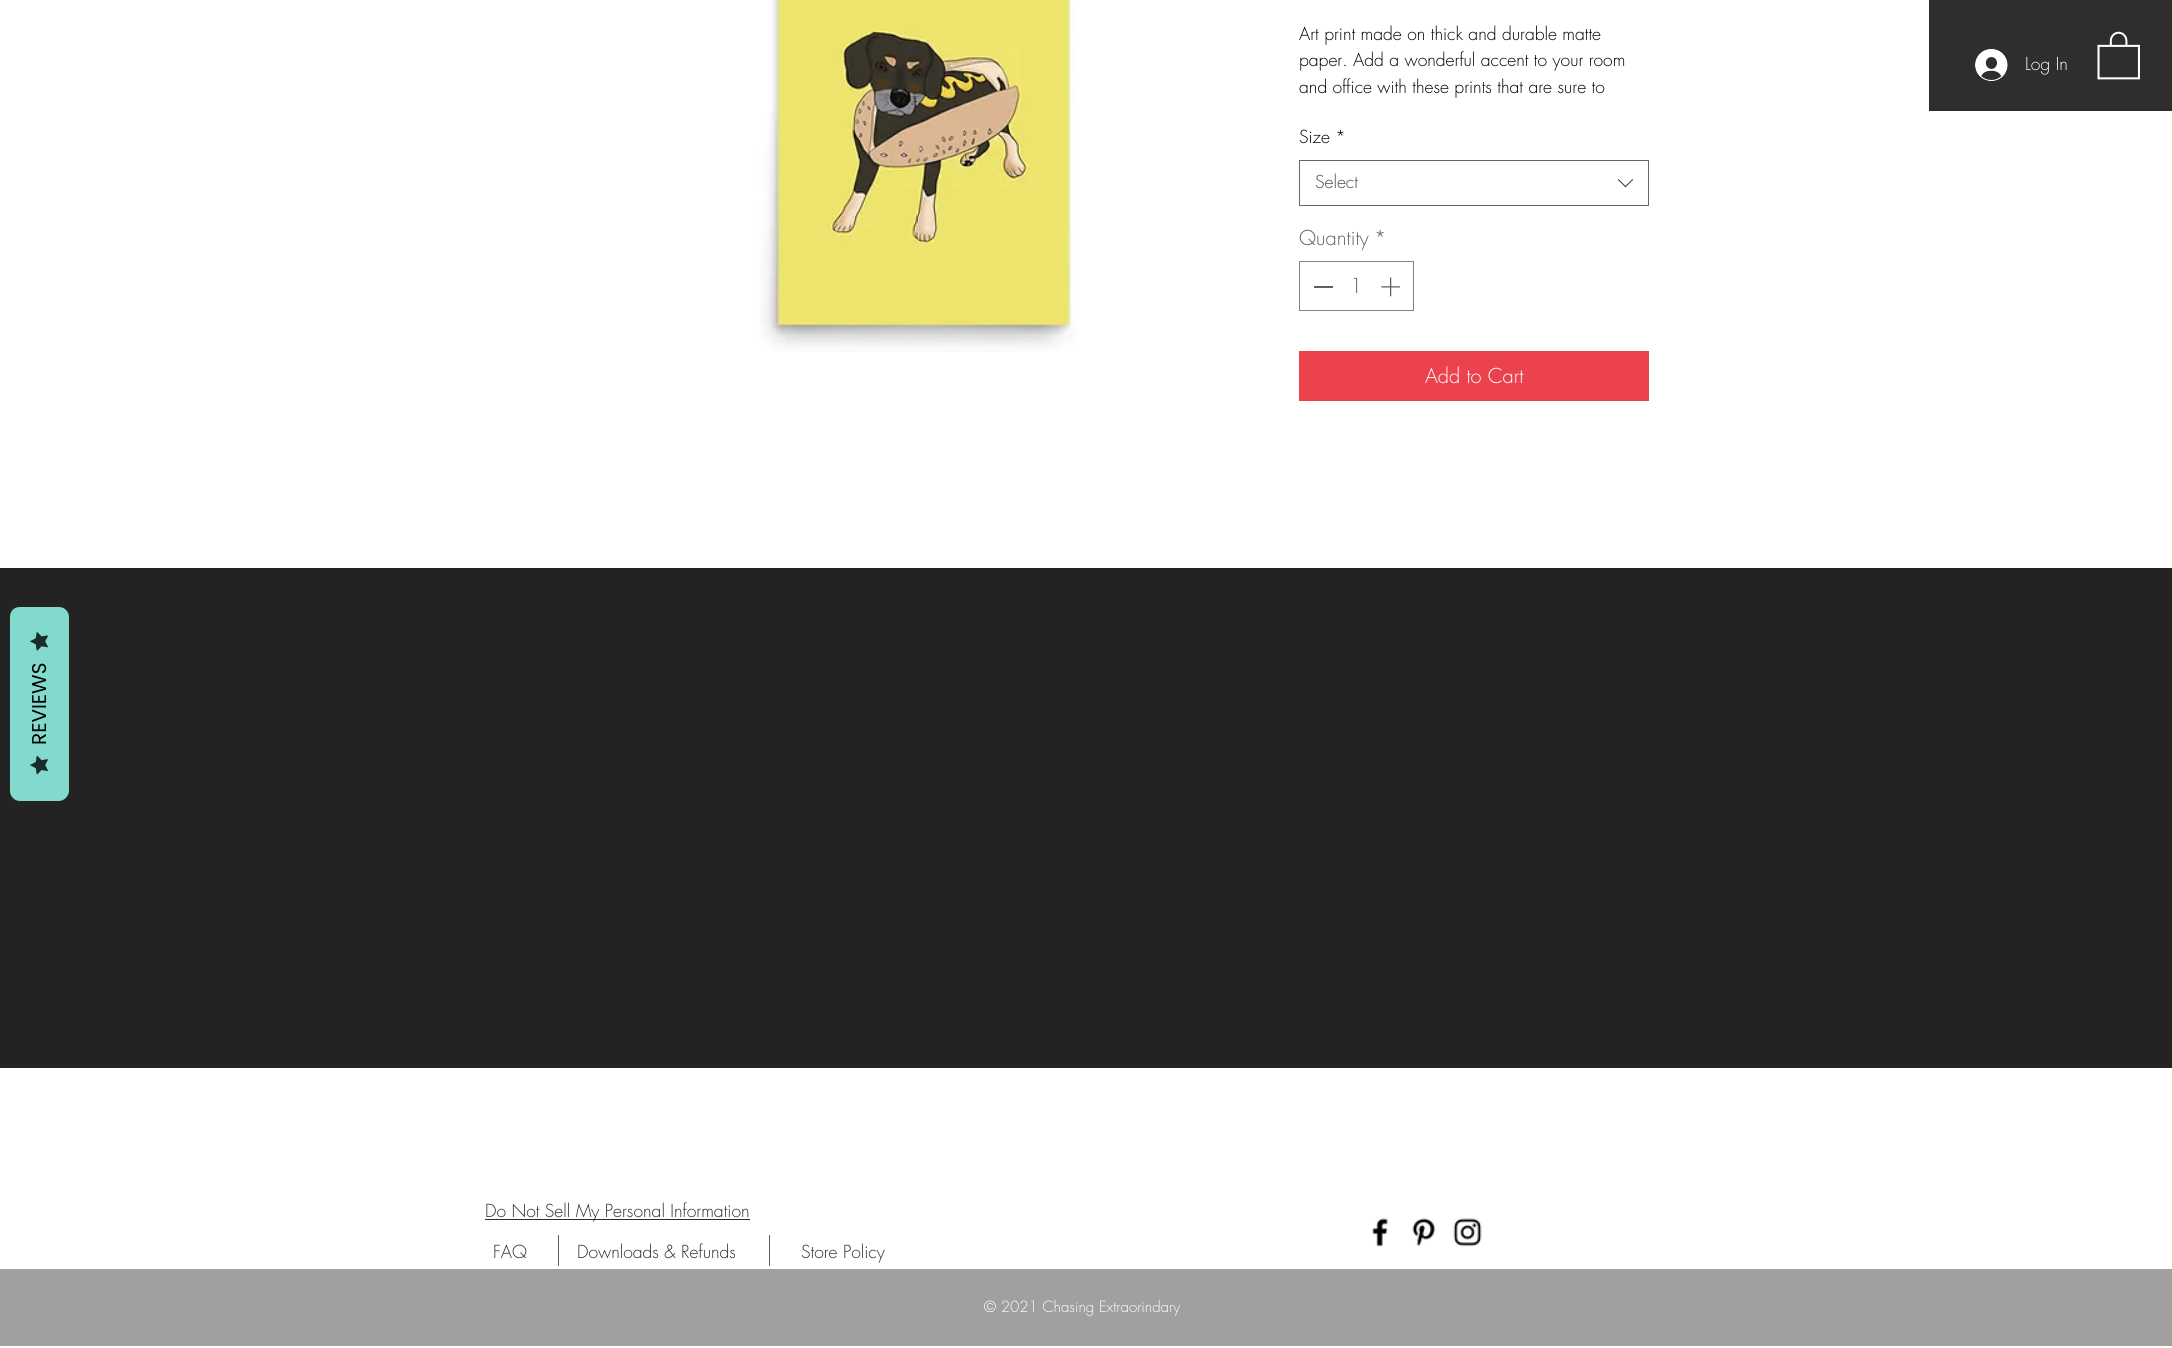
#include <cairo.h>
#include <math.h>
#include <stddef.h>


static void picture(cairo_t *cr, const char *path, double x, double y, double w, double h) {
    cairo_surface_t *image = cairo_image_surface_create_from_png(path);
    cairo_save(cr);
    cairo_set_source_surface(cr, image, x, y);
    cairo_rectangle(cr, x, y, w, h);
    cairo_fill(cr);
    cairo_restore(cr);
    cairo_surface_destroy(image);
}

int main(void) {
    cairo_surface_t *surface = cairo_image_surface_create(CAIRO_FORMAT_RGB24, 2172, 1348);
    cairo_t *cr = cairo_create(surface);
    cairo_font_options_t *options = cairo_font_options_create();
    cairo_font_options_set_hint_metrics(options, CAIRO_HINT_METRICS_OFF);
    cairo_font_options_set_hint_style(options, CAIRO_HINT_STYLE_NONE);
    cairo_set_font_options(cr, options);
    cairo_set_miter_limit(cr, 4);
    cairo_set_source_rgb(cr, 1, 1, 1);
    cairo_paint(cr);
    cairo_set_source_rgb(cr, 0.141, 0.137, 0.137);
    cairo_rectangle(cr, 0, 568, 2172, 500);
    cairo_fill(cr);
    cairo_set_source_rgb(cr, 0.51, 0.855, 0.812);
    cairo_new_path(cr);
    cairo_move_to(cr, 10, 791);
    cairo_line_to(cr, 10, 617);
    cairo_curve_to(cr, 10, 611, 14, 607, 20, 607);
    cairo_line_to(cr, 59, 607);
    cairo_curve_to(cr, 64, 607, 69, 611, 69, 617);
    cairo_line_to(cr, 69, 791);
    cairo_curve_to(cr, 69, 796, 64, 801, 59, 801);
    cairo_line_to(cr, 20, 801);
    cairo_curve_to(cr, 14, 801, 10, 796, 10, 791);
    cairo_close_path(cr);
    cairo_fill(cr);
    picture(cr, "img1.png", 30, 632, 18, 19);
    cairo_select_font_face(cr, "Poppins", CAIRO_FONT_SLANT_NORMAL, CAIRO_FONT_WEIGHT_NORMAL);
    cairo_set_font_size(cr, 20);
    cairo_set_source_rgb(cr, 0, 0, 0);
    cairo_save(cr);
    cairo_translate(cr, 46, 745);
    cairo_rotate(cr, -90 * M_PI / 180);
    cairo_move_to(cr, 0, 0);
    cairo_show_text(cr, "REVIEWS");
    cairo_restore(cr);
    picture(cr, "img2.png", 30, 755, 18, 20);
    picture(cr, "img3.png", 759, 0, 320, 352);
    cairo_select_font_face(cr, "futura Light", CAIRO_FONT_SLANT_NORMAL, CAIRO_FONT_WEIGHT_NORMAL);
    cairo_set_font_size(cr, 17.5);
    cairo_move_to(cr, 1299, 40);
    cairo_show_text(cr, "Art print made on thick and durable matte");
    cairo_move_to(cr, 1299, 66);
    cairo_show_text(cr, "paper. Add a wonderful accent to your room");
    cairo_move_to(cr, 1299, 93);
    cairo_show_text(cr, "and office with these prints that are sure to");
    cairo_move_to(cr, 1299, 143);
    cairo_show_text(cr, "Size");
    cairo_move_to(cr, 1335, 143);
    cairo_show_text(cr, "*");
    cairo_rectangle(cr, 1299.5, 160.5, 349, 45);
    cairo_set_source_rgb(cr, 0.4, 0.4, 0.4);
    cairo_set_line_width(cr, 1);
    cairo_stroke(cr);
    cairo_set_source_rgb(cr, 0.267, 0.267, 0.267);
    cairo_move_to(cr, 1315, 188);
    cairo_show_text(cr, "Select");
    picture(cr, "img4.png", 1617, 179, 17, 9);
    cairo_set_font_size(cr, 20);
    cairo_set_source_rgb(cr, 0.376, 0.369, 0.369);
    cairo_move_to(cr, 1299, 245);
    cairo_show_text(cr, "Quantity");
    cairo_move_to(cr, 1374, 245);
    cairo_show_text(cr, "*");
    cairo_rectangle(cr, 1299.5, 261.5, 114, 49);
    cairo_set_source_rgb(cr, 0.51, 0.51, 0.51);
    cairo_stroke(cr);
    cairo_set_source_rgb(cr, 0.376, 0.369, 0.369);
    cairo_rectangle(cr, 1314, 286, 19, 2);
    cairo_fill(cr);
    cairo_move_to(cr, 1350, 293);
    cairo_show_text(cr, "1");
    picture(cr, "img5.png", 1381, 277, 19, 20);
    cairo_set_source_rgb(cr, 0.918, 0.259, 0.302);
    cairo_rectangle(cr, 1299, 351, 350, 50);
    cairo_fill(cr);
    cairo_set_source_rgb(cr, 1, 1, 1);
    cairo_move_to(cr, 1425, 383);
    cairo_show_text(cr, "Add to Cart");
    cairo_set_source_rgb(cr, 0.184, 0.18, 0.18);
    cairo_rectangle(cr, 1929, 0, 243, 111);
    cairo_fill(cr);
    picture(cr, "img6.png", 1975, 49, 33, 32);
    cairo_set_font_size(cr, 17.5);
    cairo_set_source_rgb(cr, 1, 1, 1);
    cairo_move_to(cr, 2025, 70);
    cairo_show_text(cr, "Log In");
    picture(cr, "img7.png", 2097, 31, 43, 49);
    cairo_set_source_rgb(cr, 0.184, 0.18, 0.18);
    cairo_rectangle(cr, 485, 1219, 265, 1);
    cairo_fill(cr);
    cairo_move_to(cr, 485, 1217);
    cairo_show_text(cr, "Do Not Sell My Personal Information");
    cairo_move_to(cr, 493, 1258);
    cairo_show_text(cr, "FAQ");
    cairo_set_source_rgb(cr, 0.376, 0.369, 0.369);
    cairo_rectangle(cr, 558, 1235, 1, 31);
    cairo_fill(cr);
    cairo_set_source_rgb(cr, 0.184, 0.18, 0.18);
    cairo_move_to(cr, 577, 1258);
    cairo_show_text(cr, "Downloads & Refunds");
    cairo_set_source_rgb(cr, 0.376, 0.369, 0.369);
    cairo_rectangle(cr, 769, 1235, 1, 31);
    cairo_fill(cr);
    cairo_set_source_rgb(cr, 0.184, 0.18, 0.18);
    cairo_move_to(cr, 801, 1258);
    cairo_show_text(cr, "Store Policy");
    picture(cr, "img8.png", 1372, 1218, 16, 29);
    picture(cr, "img9.png", 1412, 1218, 24, 29);
    picture(cr, "img10.png", 1453, 1218, 29, 29);
    cairo_set_source_rgb(cr, 0.627, 0.627, 0.624);
    cairo_rectangle(cr, 0, 1269, 2172, 77);
    cairo_fill(cr);
    cairo_set_font_size(cr, 15);
    cairo_set_source_rgb(cr, 1, 1, 1);
    cairo_move_to(cr, 984, 1312);
    cairo_show_text(cr, "© 2021 Chasing Extraorindary");
    cairo_surface_write_to_png(surface, "page.png");
    cairo_font_options_destroy(options);
    cairo_destroy(cr);
    cairo_surface_destroy(surface);
    return 0;
}
